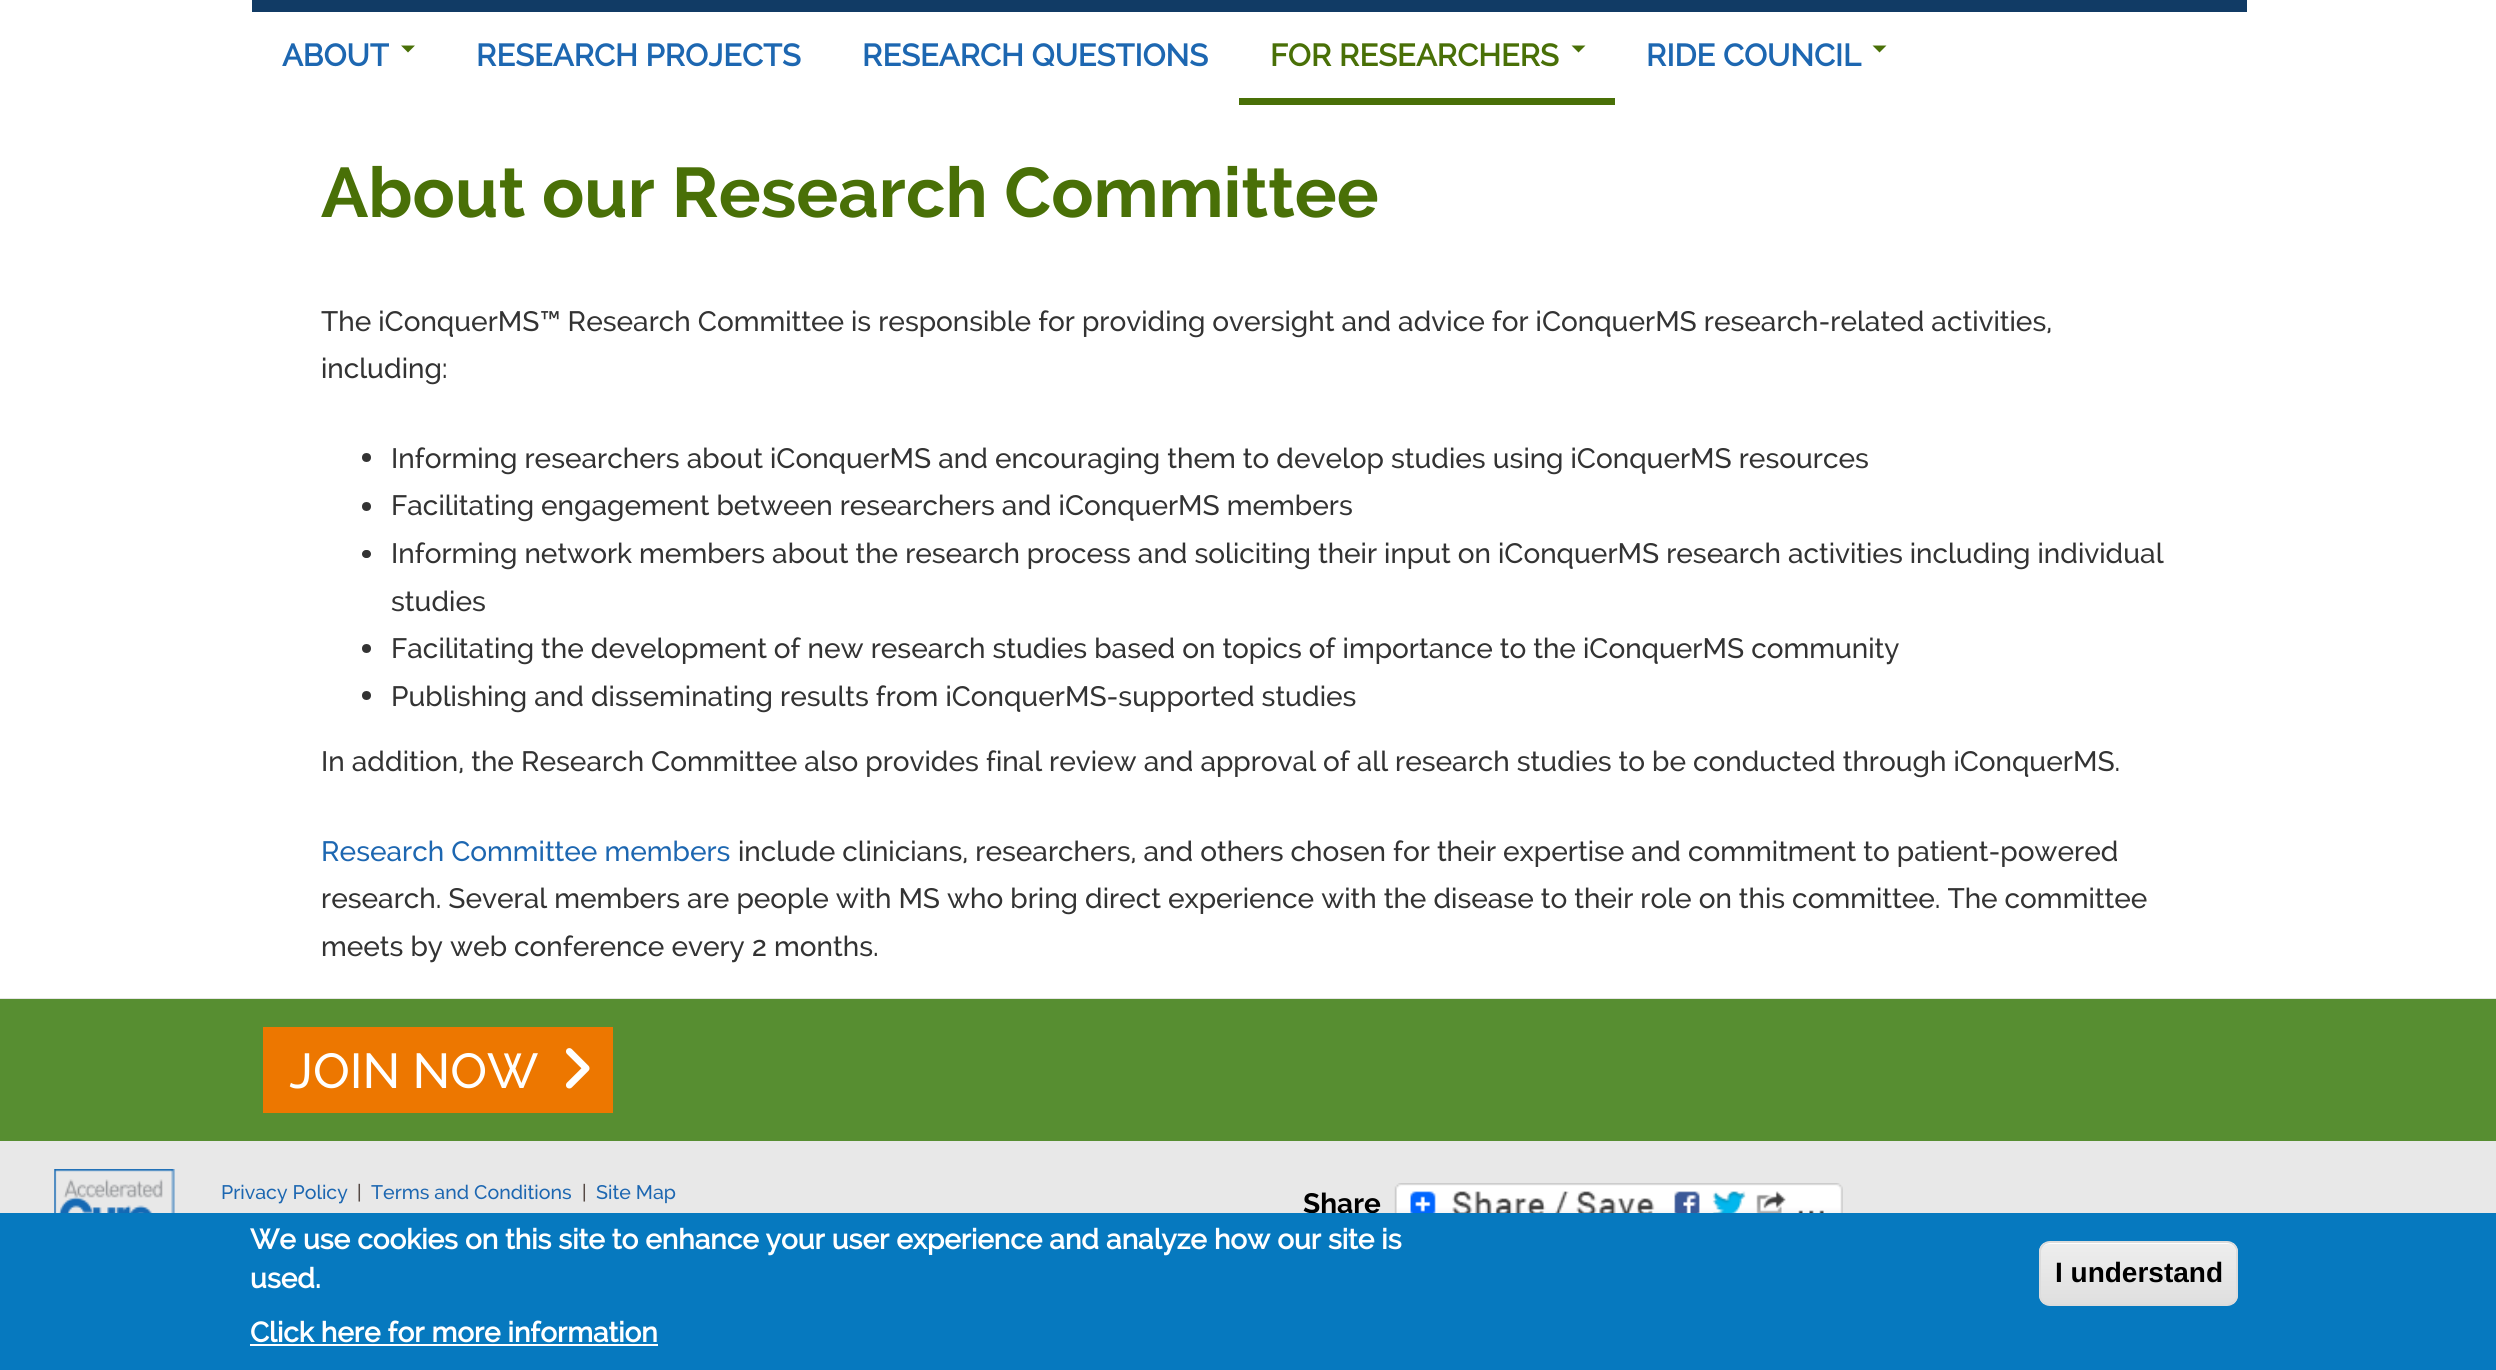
#include <cairo.h>
#include <math.h>
#include <stddef.h>


static void round_rect(cairo_t *cr, double x, double y, double w, double h, double r) {
    cairo_new_sub_path(cr);
    cairo_arc(cr, x + w - r, y + h - r, r, 0, M_PI / 2);
    cairo_arc(cr, x + r, y + h - r, r, M_PI / 2, M_PI);
    cairo_arc(cr, x + r, y + r, r, M_PI, 1.5 * M_PI);
    cairo_arc(cr, x + w - r, y + r, r, 1.5 * M_PI, 2 * M_PI);
    cairo_close_path(cr);
}

static void picture(cairo_t *cr, const char *path, double x, double y, double w, double h) {
    cairo_surface_t *image = cairo_image_surface_create_from_png(path);
    cairo_save(cr);
    cairo_set_source_surface(cr, image, x, y);
    cairo_rectangle(cr, x, y, w, h);
    cairo_fill(cr);
    cairo_restore(cr);
    cairo_surface_destroy(image);
}

int main(void) {
    cairo_surface_t *surface = cairo_image_surface_create(CAIRO_FORMAT_RGB24, 2496, 1370);
    cairo_t *cr = cairo_create(surface);
    cairo_font_options_t *options = cairo_font_options_create();
    cairo_font_options_set_hint_metrics(options, CAIRO_HINT_METRICS_OFF);
    cairo_font_options_set_hint_style(options, CAIRO_HINT_STYLE_NONE);
    cairo_set_font_options(cr, options);
    cairo_set_miter_limit(cr, 4);
    cairo_pattern_t *gradient;
    cairo_set_source_rgb(cr, 1, 1, 1);
    cairo_paint(cr);
    cairo_set_source_rgb(cr, 0.067, 0.231, 0.396);
    cairo_rectangle(cr, 252, 0, 1995, 12);
    cairo_fill(cr);
    cairo_select_font_face(cr, "Raleway", CAIRO_FONT_SLANT_NORMAL, CAIRO_FONT_WEIGHT_BOLD);
    cairo_set_font_size(cr, 30.75);
    cairo_set_source_rgb(cr, 0.114, 0.404, 0.694);
    cairo_move_to(cr, 282, 66);
    cairo_show_text(cr, "ABOUT");
    cairo_set_source_rgb(cr, 0.286, 0.439, 0.031);
    cairo_new_path(cr);
    cairo_move_to(cr, 401, 45.5);
    cairo_line_to(cr, 415, 45.5);
    cairo_line_to(cr, 408, 52.5);
    cairo_close_path(cr);
    cairo_fill(cr);
    cairo_set_source_rgb(cr, 0.114, 0.404, 0.694);
    cairo_move_to(cr, 476, 66);
    cairo_show_text(cr, "RESEARCH PROJECTS");
    cairo_move_to(cr, 862, 66);
    cairo_show_text(cr, "RESEARCH QUESTIONS");
    cairo_set_source_rgb(cr, 0.286, 0.439, 0.031);
    cairo_rectangle(cr, 1239, 98, 376, 7);
    cairo_fill(cr);
    cairo_move_to(cr, 1270, 66);
    cairo_show_text(cr, "FOR RESEARCHERS");
    cairo_new_path(cr);
    cairo_move_to(cr, 1571.5, 45.5);
    cairo_line_to(cr, 1585.5, 45.5);
    cairo_line_to(cr, 1578.5, 52.5);
    cairo_close_path(cr);
    cairo_fill(cr);
    cairo_set_source_rgb(cr, 0.114, 0.404, 0.694);
    cairo_move_to(cr, 1646, 66);
    cairo_show_text(cr, "RIDE COUNCIL");
    cairo_set_source_rgb(cr, 0.286, 0.439, 0.031);
    cairo_new_path(cr);
    cairo_move_to(cr, 1872.5, 45.5);
    cairo_line_to(cr, 1886.5, 45.5);
    cairo_line_to(cr, 1879.5, 52.5);
    cairo_close_path(cr);
    cairo_fill(cr);
    cairo_select_font_face(cr, "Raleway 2", CAIRO_FONT_SLANT_NORMAL, CAIRO_FONT_WEIGHT_BOLD);
    cairo_set_font_size(cr, 70);
    cairo_move_to(cr, 321, 217);
    cairo_show_text(cr, "About our Research Committee");
    cairo_select_font_face(cr, "Raleway Medium", CAIRO_FONT_SLANT_NORMAL, CAIRO_FONT_WEIGHT_NORMAL);
    cairo_set_font_size(cr, 28);
    cairo_set_source_rgb(cr, 0.2, 0.2, 0.2);
    cairo_move_to(cr, 321, 331);
    cairo_show_text(cr, "The iConquerMS™ Research Committee is responsible for providing oversight and advice for iConquerMS research-related activities,");
    cairo_move_to(cr, 321, 378);
    cairo_show_text(cr, "including:");
    cairo_new_path(cr);
    cairo_arc(cr, 366.5, 457.5, 4.5, 0, 2 * M_PI);
    cairo_fill(cr);
    cairo_move_to(cr, 391, 468);
    cairo_show_text(cr, "Informing researchers about iConquerMS and encouraging them to develop studies using iConquerMS resources");
    cairo_new_path(cr);
    cairo_arc(cr, 366.5, 506.5, 4.5, 0, 2 * M_PI);
    cairo_fill(cr);
    cairo_move_to(cr, 391, 515);
    cairo_show_text(cr, "Facilitating engagement between researchers and iConquerMS members");
    round_rect(cr, 362, 550, 9, 8, 4);
    cairo_fill(cr);
    cairo_move_to(cr, 391, 563);
    cairo_show_text(cr, "Informing network members about the research process and soliciting their input on iConquerMS research activities including individual");
    cairo_move_to(cr, 391, 611);
    cairo_show_text(cr, "studies");
    cairo_new_path(cr);
    cairo_arc(cr, 366.5, 648.5, 4.5, 0, 2 * M_PI);
    cairo_fill(cr);
    cairo_move_to(cr, 391, 658);
    cairo_show_text(cr, "Facilitating the development of new research studies based on topics of importance to the iConquerMS community");
    cairo_new_path(cr);
    cairo_arc(cr, 366.5, 695.5, 4.5, 0, 2 * M_PI);
    cairo_fill(cr);
    cairo_move_to(cr, 391, 706);
    cairo_show_text(cr, "Publishing and disseminating results from iConquerMS-supported studies");
    cairo_move_to(cr, 321, 771);
    cairo_show_text(cr, "In addition, the Research Committee also provides final review and approval of all research studies to be conducted through iConquerMS.");
    cairo_set_source_rgb(cr, 0.114, 0.404, 0.694);
    cairo_move_to(cr, 321, 861);
    cairo_show_text(cr, "Research Committee members");
    cairo_set_source_rgb(cr, 0.2, 0.2, 0.2);
    cairo_move_to(cr, 738, 861);
    cairo_show_text(cr, "include clinicians, researchers, and others chosen for their expertise and commitment to patient-powered");
    cairo_move_to(cr, 321, 908);
    cairo_show_text(cr, "research. Several members are people with MS who bring direct experience with the disease to their role on this committee. The committee");
    cairo_move_to(cr, 321, 956);
    cairo_show_text(cr, "meets by web conference every 2 months.");
    cairo_set_source_rgb(cr, 0.91, 0.91, 0.91);
    cairo_rectangle(cr, 0, 1141, 2496, 72);
    cairo_fill(cr);
    cairo_set_source_rgb(cr, 0.898, 0.898, 0.898);
    cairo_rectangle(cr, 0, 998, 2496, 1);
    cairo_fill(cr);
    cairo_set_source_rgb(cr, 0.341, 0.557, 0.192);
    cairo_rectangle(cr, 0, 999, 2496, 142);
    cairo_fill(cr);
    cairo_set_source_rgb(cr, 0.929, 0.467, 0);
    cairo_rectangle(cr, 263, 1027, 350, 86);
    cairo_fill(cr);
    cairo_set_font_size(cr, 49);
    cairo_set_source_rgb(cr, 1, 1, 1);
    cairo_move_to(cr, 289, 1088);
    cairo_show_text(cr, "JOIN NOW");
    picture(cr, "img1.png", 566, 1048, 24, 41);
    picture(cr, "img2.png", 54, 1169, 121, 44);
    cairo_set_font_size(cr, 19.6);
    cairo_set_source_rgb(cr, 0.114, 0.404, 0.694);
    cairo_move_to(cr, 221, 1199);
    cairo_show_text(cr, "Privacy Policy");
    cairo_set_source_rgb(cr, 0.333, 0.286, 0.267);
    cairo_move_to(cr, 357, 1199);
    cairo_show_text(cr, "|");
    cairo_set_source_rgb(cr, 0.114, 0.404, 0.694);
    cairo_move_to(cr, 371, 1199);
    cairo_show_text(cr, "Terms and Conditions");
    cairo_set_source_rgb(cr, 0.333, 0.286, 0.267);
    cairo_move_to(cr, 582, 1199);
    cairo_show_text(cr, "|");
    cairo_set_source_rgb(cr, 0.114, 0.404, 0.694);
    cairo_move_to(cr, 596, 1199);
    cairo_show_text(cr, "Site Map");
    cairo_select_font_face(cr, "Raleway 2", CAIRO_FONT_SLANT_NORMAL, CAIRO_FONT_WEIGHT_BOLD);
    cairo_set_font_size(cr, 28);
    cairo_set_source_rgb(cr, 0, 0, 0);
    cairo_move_to(cr, 1303, 1213);
    cairo_show_text(cr, "Share");
    picture(cr, "img3.png", 1394, 1183, 449, 30);
    cairo_set_source_rgb(cr, 0.027, 0.475, 0.749);
    cairo_rectangle(cr, 0, 1213, 2496, 157);
    cairo_fill(cr);
    cairo_select_font_face(cr, "Raleway", CAIRO_FONT_SLANT_NORMAL, CAIRO_FONT_WEIGHT_BOLD);
    cairo_set_source_rgb(cr, 1, 1, 1);
    cairo_move_to(cr, 250, 1249);
    cairo_show_text(cr, "We use cookies on this site to enhance your user experience and analyze how our site is");
    cairo_move_to(cr, 250, 1288);
    cairo_show_text(cr, "used.");
    cairo_move_to(cr, 250, 1342);
    cairo_show_text(cr, "Click here for more information");
    cairo_rectangle(cr, 250, 1344, 408, 2);
    cairo_fill(cr);
    cairo_save(cr);
    round_rect(cr, 2039, 1241, 199, 65, 11);
    cairo_clip(cr);
    gradient = cairo_pattern_create_linear(2139, 1243, 2139, 1304);
    cairo_pattern_add_color_stop_rgba(gradient, 0.05, 0.929, 0.929, 0.929, 1);
    cairo_pattern_add_color_stop_rgba(gradient, 1, 0.875, 0.875, 0.875, 1);
    cairo_set_source(cr, gradient);
    cairo_pattern_destroy(gradient);
    cairo_rectangle(cr, 2039, 1243, 199, 61);
    cairo_fill(cr);
    cairo_restore(cr);
    cairo_new_path(cr);
    cairo_move_to(cr, 2049, 1244);
    cairo_line_to(cr, 2228, 1244);
    cairo_curve_to(cr, 2233, 1244, 2236, 1248, 2236, 1253);
    cairo_line_to(cr, 2236, 1300);
    cairo_curve_to(cr, 2237, 1298, 2237, 1297, 2237, 1295);
    cairo_line_to(cr, 2237, 1252);
    cairo_curve_to(cr, 2237, 1247, 2233, 1243, 2228, 1243);
    cairo_line_to(cr, 2050, 1243);
    cairo_curve_to(cr, 2047, 1243, 2045, 1244, 2043, 1246);
    cairo_curve_to(cr, 2045, 1245, 2047, 1244, 2049, 1244);
    cairo_close_path(cr);
    cairo_fill(cr);
    round_rect(cr, 2040, 1242, 197, 63, 10);
    cairo_set_source_rgb(cr, 0.863, 0.863, 0.863);
    cairo_stroke(cr);
    cairo_select_font_face(cr, "Liberation Sans", CAIRO_FONT_SLANT_NORMAL, CAIRO_FONT_WEIGHT_BOLD);
    cairo_set_source_rgb(cr, 0, 0, 0);
    cairo_move_to(cr, 2055, 1282);
    cairo_show_text(cr, "I understand");
    cairo_surface_write_to_png(surface, "page.png");
    cairo_font_options_destroy(options);
    cairo_destroy(cr);
    cairo_surface_destroy(surface);
    return 0;
}
